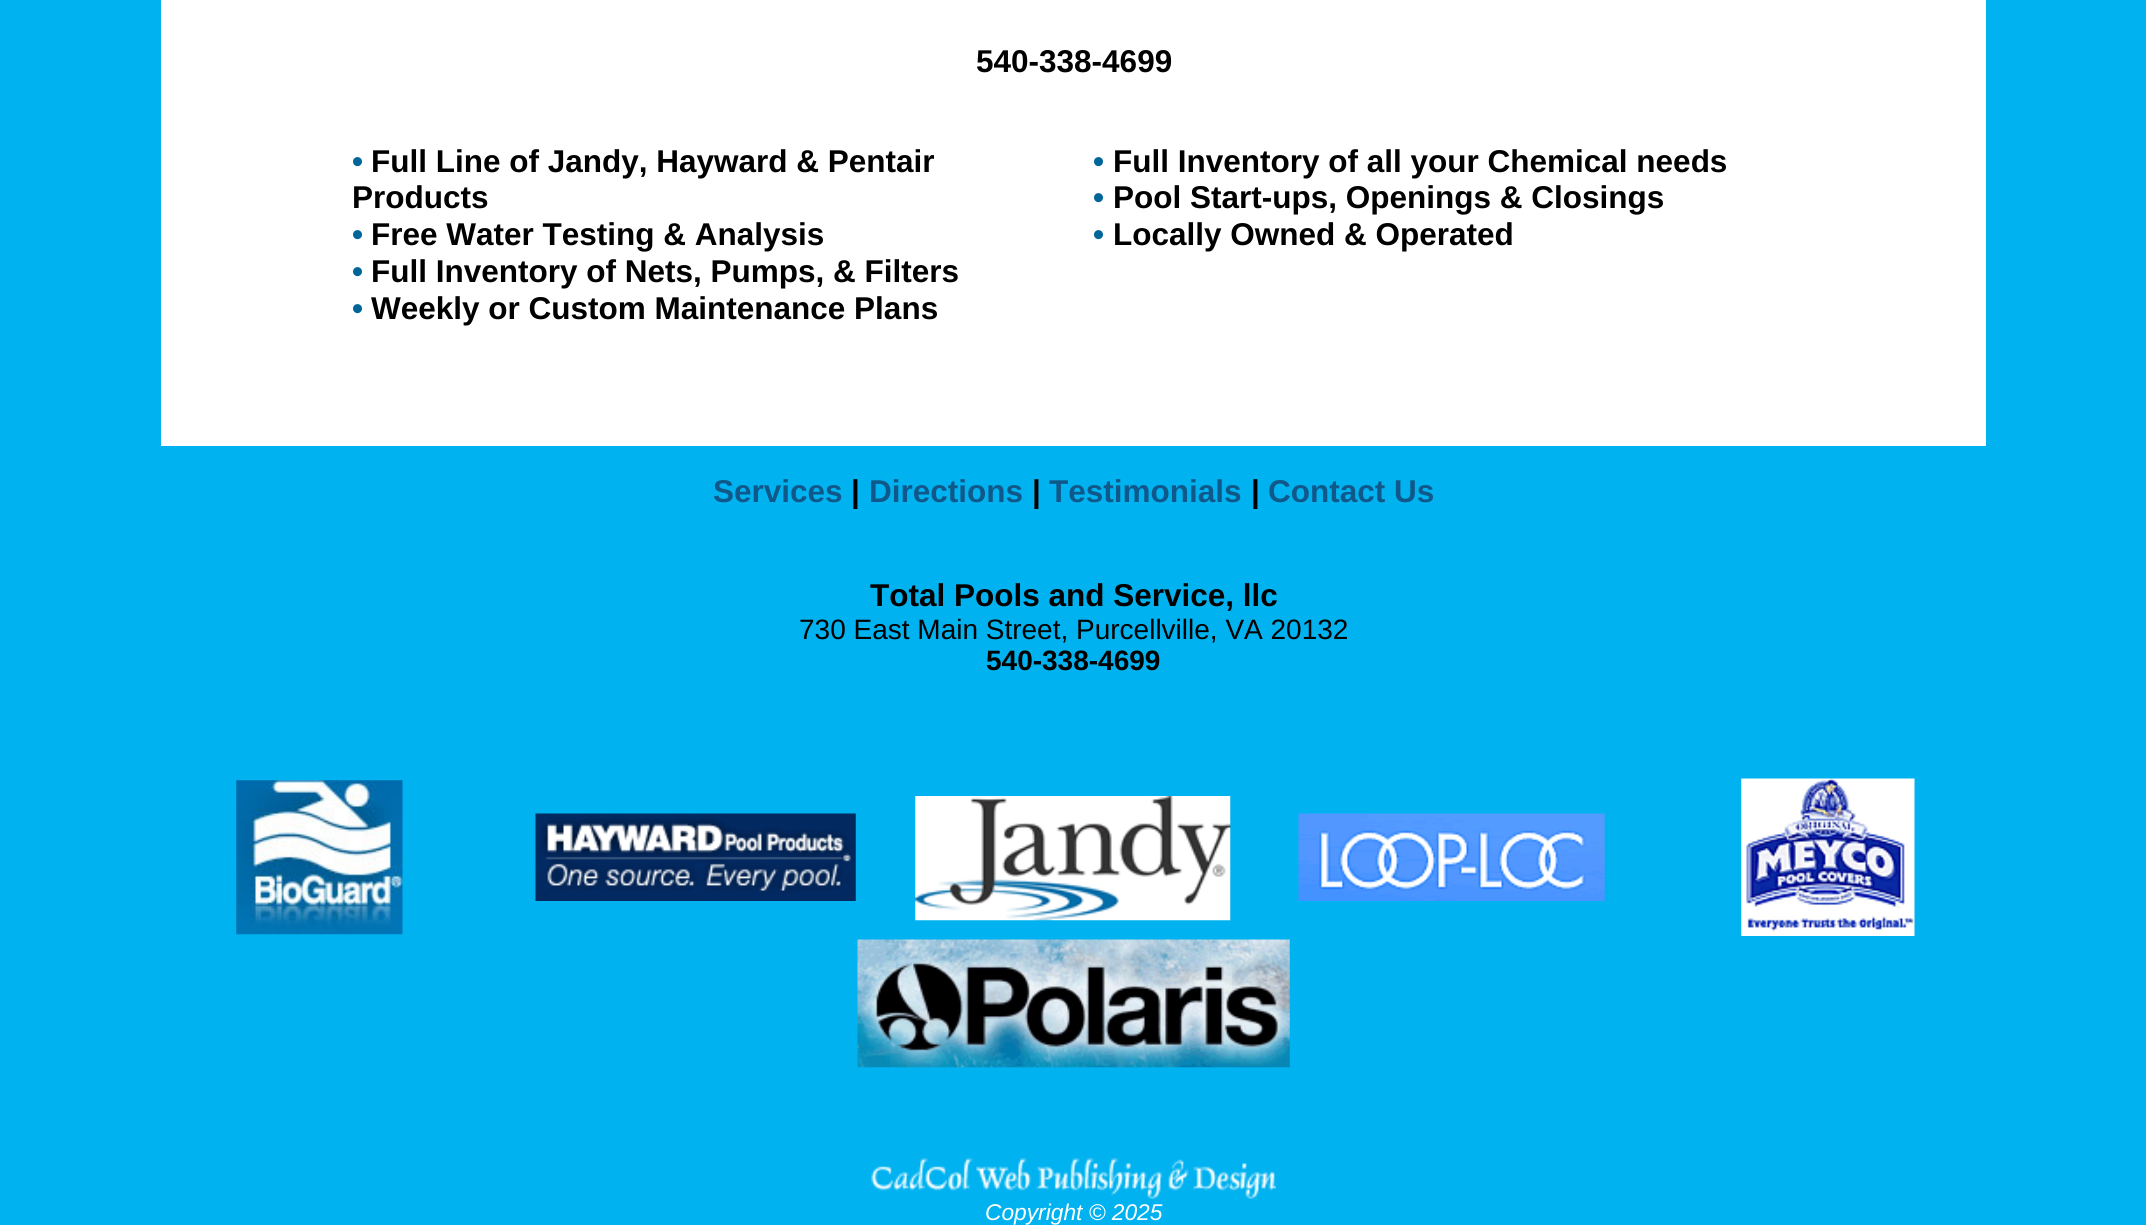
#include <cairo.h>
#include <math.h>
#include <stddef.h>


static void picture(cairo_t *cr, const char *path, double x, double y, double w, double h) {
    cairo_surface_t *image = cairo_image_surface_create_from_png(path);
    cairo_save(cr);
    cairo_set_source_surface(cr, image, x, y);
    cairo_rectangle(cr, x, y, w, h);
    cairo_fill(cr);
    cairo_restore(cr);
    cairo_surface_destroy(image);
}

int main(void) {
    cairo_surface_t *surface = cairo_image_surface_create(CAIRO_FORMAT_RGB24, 2146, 1225);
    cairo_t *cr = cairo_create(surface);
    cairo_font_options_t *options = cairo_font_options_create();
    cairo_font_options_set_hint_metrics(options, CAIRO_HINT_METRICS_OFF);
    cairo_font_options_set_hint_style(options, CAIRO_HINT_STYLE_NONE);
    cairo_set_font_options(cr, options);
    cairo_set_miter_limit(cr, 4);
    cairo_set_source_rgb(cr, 0, 0.698, 0.937);
    cairo_paint(cr);
    cairo_set_source_rgb(cr, 1, 1, 1);
    cairo_rectangle(cr, 161, 0, 1825, 446);
    cairo_fill(cr);
    cairo_select_font_face(cr, "Liberation Sans", CAIRO_FONT_SLANT_NORMAL, CAIRO_FONT_WEIGHT_BOLD);
    cairo_set_font_size(cr, 31.5);
    cairo_set_source_rgb(cr, 0, 0, 0);
    cairo_move_to(cr, 976, 72);
    cairo_show_text(cr, "540-338-4699");
    cairo_set_source_rgb(cr, 0, 0.4, 0.6);
    cairo_move_to(cr, 352, 172);
    cairo_show_text(cr, "•");
    cairo_set_source_rgb(cr, 0, 0, 0);
    cairo_move_to(cr, 371, 172);
    cairo_show_text(cr, "Full Line of Jandy, Hayward & Pentair");
    cairo_move_to(cr, 352, 208);
    cairo_show_text(cr, "Products");
    cairo_set_source_rgb(cr, 0, 0.4, 0.6);
    cairo_move_to(cr, 352, 245);
    cairo_show_text(cr, "•");
    cairo_set_source_rgb(cr, 0, 0, 0);
    cairo_move_to(cr, 371, 245);
    cairo_show_text(cr, "Free Water Testing & Analysis");
    cairo_set_source_rgb(cr, 0, 0.4, 0.6);
    cairo_move_to(cr, 352, 282);
    cairo_show_text(cr, "•");
    cairo_set_source_rgb(cr, 0, 0, 0);
    cairo_move_to(cr, 371, 282);
    cairo_show_text(cr, "Full Inventory of Nets, Pumps, & Filters");
    cairo_set_source_rgb(cr, 0, 0.4, 0.6);
    cairo_move_to(cr, 352, 319);
    cairo_show_text(cr, "•");
    cairo_set_source_rgb(cr, 0, 0, 0);
    cairo_move_to(cr, 371, 319);
    cairo_show_text(cr, "Weekly or Custom Maintenance Plans");
    cairo_set_source_rgb(cr, 0, 0.4, 0.6);
    cairo_move_to(cr, 1093, 172);
    cairo_show_text(cr, "•");
    cairo_set_source_rgb(cr, 0, 0, 0);
    cairo_move_to(cr, 1113, 172);
    cairo_show_text(cr, "Full Inventory of all your Chemical needs");
    cairo_set_source_rgb(cr, 0, 0.4, 0.6);
    cairo_move_to(cr, 1093, 208);
    cairo_show_text(cr, "•");
    cairo_set_source_rgb(cr, 0, 0, 0);
    cairo_move_to(cr, 1113, 208);
    cairo_show_text(cr, "Pool Start-ups, Openings & Closings");
    cairo_set_source_rgb(cr, 0, 0.4, 0.6);
    cairo_move_to(cr, 1093, 245);
    cairo_show_text(cr, "•");
    cairo_set_source_rgb(cr, 0, 0, 0);
    cairo_move_to(cr, 1113, 245);
    cairo_show_text(cr, "Locally Owned & Operated");
    cairo_set_source_rgb(cr, 0.063, 0.345, 0.537);
    cairo_move_to(cr, 713, 502);
    cairo_show_text(cr, "Services");
    cairo_set_source_rgb(cr, 0, 0, 0);
    cairo_move_to(cr, 851, 502);
    cairo_show_text(cr, "|");
    cairo_set_source_rgb(cr, 0.063, 0.345, 0.537);
    cairo_move_to(cr, 869, 502);
    cairo_show_text(cr, "Directions");
    cairo_set_source_rgb(cr, 0, 0, 0);
    cairo_move_to(cr, 1032, 502);
    cairo_show_text(cr, "|");
    cairo_set_source_rgb(cr, 0.063, 0.345, 0.537);
    cairo_move_to(cr, 1049, 502);
    cairo_show_text(cr, "Testimonials");
    cairo_set_source_rgb(cr, 0, 0, 0);
    cairo_move_to(cr, 1251, 502);
    cairo_show_text(cr, "|");
    cairo_set_source_rgb(cr, 0.063, 0.345, 0.537);
    cairo_move_to(cr, 1268, 502);
    cairo_show_text(cr, "Contact Us");
    cairo_set_source_rgb(cr, 0, 0, 0);
    cairo_move_to(cr, 870, 606);
    cairo_show_text(cr, "Total Pools and Service, llc");
    cairo_select_font_face(cr, "Liberation Sans", CAIRO_FONT_SLANT_NORMAL, CAIRO_FONT_WEIGHT_NORMAL);
    cairo_set_font_size(cr, 28);
    cairo_move_to(cr, 799, 639);
    cairo_show_text(cr, "730 East Main Street, Purcellville, VA 20132");
    cairo_select_font_face(cr, "Liberation Sans", CAIRO_FONT_SLANT_NORMAL, CAIRO_FONT_WEIGHT_BOLD);
    cairo_move_to(cr, 986, 670);
    cairo_show_text(cr, "540-338-4699");
    picture(cr, "img1.png", 236, 780, 167, 155);
    picture(cr, "img2.png", 535, 813, 321, 88);
    picture(cr, "img3.png", 915, 796, 316, 125);
    picture(cr, "img4.png", 1298, 813, 307, 88);
    picture(cr, "img5.png", 1741, 778, 174, 158);
    picture(cr, "img6.png", 857, 939, 433, 129);
    picture(cr, "img7.png", 871, 1158, 405, 41);
    cairo_select_font_face(cr, "Liberation Sans", CAIRO_FONT_SLANT_ITALIC, CAIRO_FONT_WEIGHT_NORMAL);
    cairo_set_font_size(cr, 22.75);
    cairo_set_source_rgb(cr, 1, 1, 1);
    cairo_move_to(cr, 985, 1220);
    cairo_show_text(cr, "Copyright © 2025");
    cairo_surface_write_to_png(surface, "page.png");
    cairo_font_options_destroy(options);
    cairo_destroy(cr);
    cairo_surface_destroy(surface);
    return 0;
}
